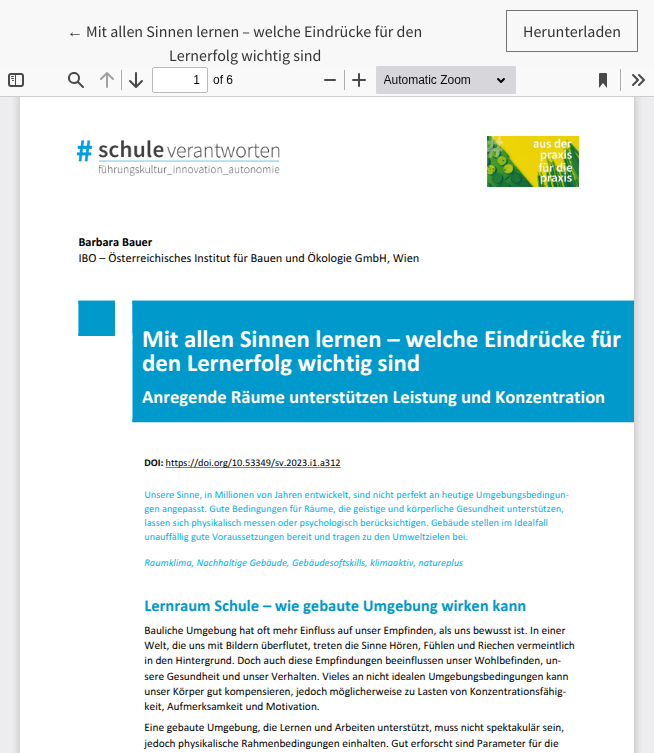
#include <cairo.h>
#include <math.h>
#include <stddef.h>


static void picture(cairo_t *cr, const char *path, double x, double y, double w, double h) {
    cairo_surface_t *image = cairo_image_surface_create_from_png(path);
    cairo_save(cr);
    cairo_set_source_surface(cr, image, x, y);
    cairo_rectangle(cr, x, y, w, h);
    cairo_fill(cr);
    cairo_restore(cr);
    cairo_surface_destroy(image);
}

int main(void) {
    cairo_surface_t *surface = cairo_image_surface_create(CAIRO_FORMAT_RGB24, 654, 753);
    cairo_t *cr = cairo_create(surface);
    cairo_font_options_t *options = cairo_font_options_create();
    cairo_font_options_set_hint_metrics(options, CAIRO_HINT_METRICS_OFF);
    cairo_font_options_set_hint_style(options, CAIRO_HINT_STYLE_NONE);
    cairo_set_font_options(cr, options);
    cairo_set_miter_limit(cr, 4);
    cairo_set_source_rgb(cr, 0.969, 0.969, 0.969);
    cairo_paint(cr);
    cairo_select_font_face(cr, "Liberation Sans", CAIRO_FONT_SLANT_NORMAL, CAIRO_FONT_WEIGHT_NORMAL);
    cairo_set_font_size(cr, 16);
    cairo_set_source_rgb(cr, 0.2, 0.2, 0.2);
    cairo_move_to(cr, 67, 37);
    cairo_show_text(cr, "←");
    cairo_select_font_face(cr, "Source Sans Pro", CAIRO_FONT_SLANT_NORMAL, CAIRO_FONT_WEIGHT_NORMAL);
    cairo_move_to(cr, 86, 37);
    cairo_show_text(cr, "Mit allen Sinnen lernen – welche Eindrücke für den");
    cairo_move_to(cr, 169, 61);
    cairo_show_text(cr, "Lernerfolg wichtig sind");
    cairo_rectangle(cr, 506.5, 10.5, 131, 41);
    cairo_set_source_rgb(cr, 0.459, 0.459, 0.459);
    cairo_set_line_width(cr, 1);
    cairo_stroke(cr);
    cairo_set_source_rgb(cr, 0.2, 0.2, 0.2);
    cairo_move_to(cr, 523, 37);
    cairo_show_text(cr, "Herunterladen");
    picture(cr, "img1.png", 0, 66, 654, 687);
    cairo_surface_write_to_png(surface, "page.png");
    cairo_font_options_destroy(options);
    cairo_destroy(cr);
    cairo_surface_destroy(surface);
    return 0;
}
